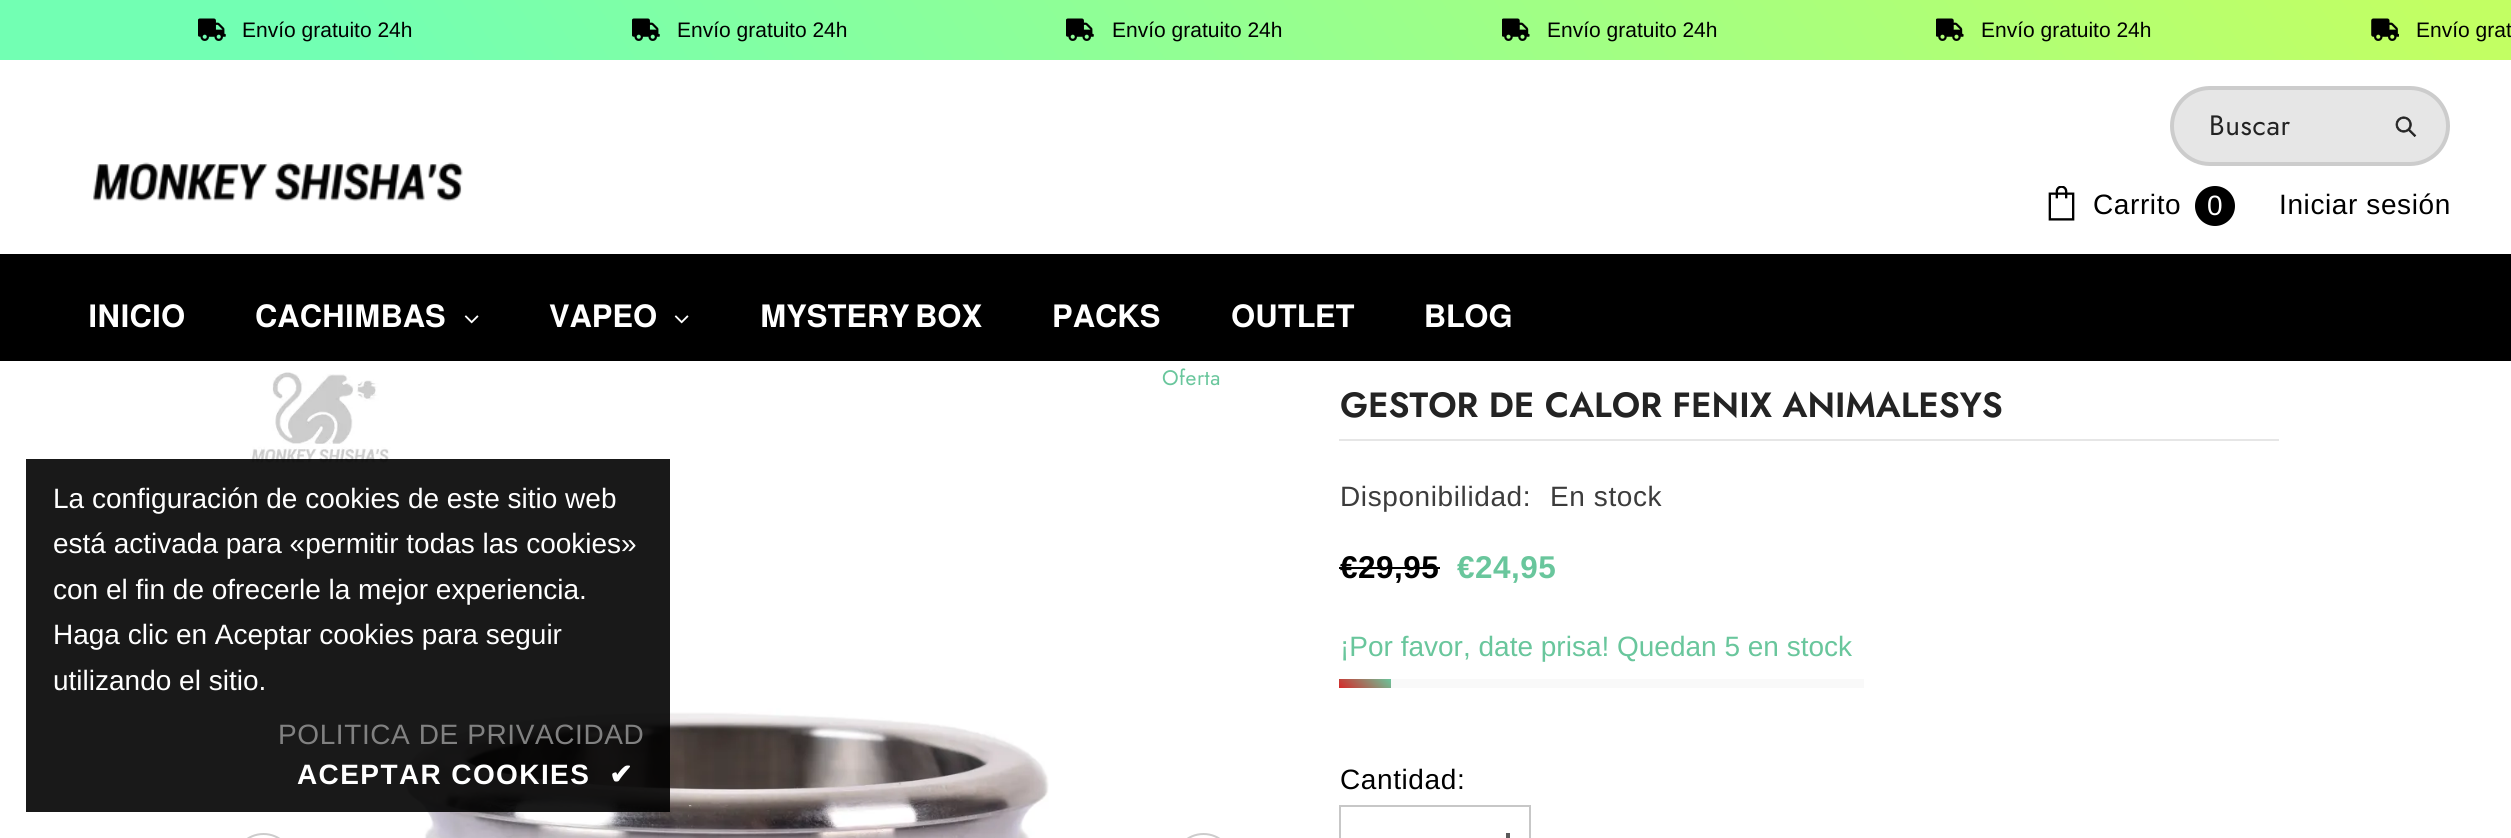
#include <cairo.h>
#include <math.h>
#include <stddef.h>


static void spaced_text(cairo_t *cr, double x, double y, const char *s, double letter, double word) {
    cairo_move_to(cr, x, y);
    while (*s) {
        char ch[5] = {0};
        int n = 0;
        do ch[n++] = *s++; while ((*s & 0xC0) == 0x80);
        cairo_show_text(cr, ch);
        cairo_rel_move_to(cr, letter + word * (*ch == ' '), 0);
    }
}

static void round_rect(cairo_t *cr, double x, double y, double w, double h, double r) {
    cairo_new_sub_path(cr);
    cairo_arc(cr, x + w - r, y + h - r, r, 0, M_PI / 2);
    cairo_arc(cr, x + r, y + h - r, r, M_PI / 2, M_PI);
    cairo_arc(cr, x + r, y + r, r, M_PI, 1.5 * M_PI);
    cairo_arc(cr, x + w - r, y + r, r, 1.5 * M_PI, 2 * M_PI);
    cairo_close_path(cr);
}

static void picture(cairo_t *cr, const char *path, double x, double y, double w, double h) {
    cairo_surface_t *image = cairo_image_surface_create_from_png(path);
    cairo_save(cr);
    cairo_set_source_surface(cr, image, x, y);
    cairo_rectangle(cr, x, y, w, h);
    cairo_fill(cr);
    cairo_restore(cr);
    cairo_surface_destroy(image);
}

int main(void) {
    cairo_surface_t *surface = cairo_image_surface_create(CAIRO_FORMAT_RGB24, 2511, 838);
    cairo_t *cr = cairo_create(surface);
    cairo_font_options_t *options = cairo_font_options_create();
    cairo_font_options_set_hint_metrics(options, CAIRO_HINT_METRICS_OFF);
    cairo_font_options_set_hint_style(options, CAIRO_HINT_STYLE_NONE);
    cairo_set_font_options(cr, options);
    cairo_set_miter_limit(cr, 4);
    cairo_pattern_t *gradient;
    cairo_set_source_rgb(cr, 1, 1, 1);
    cairo_paint(cr);
    gradient = cairo_pattern_create_linear(420, 637, 2092, -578);
    cairo_pattern_add_color_stop_rgba(gradient, 0.14, 0.447, 1, 0.702, 1);
    cairo_pattern_add_color_stop_rgba(gradient, 0.97, 0.761, 1, 0.388, 1);
    cairo_set_source(cr, gradient);
    cairo_pattern_destroy(gradient);
    cairo_rectangle(cr, 0, 0, 2511, 60);
    cairo_fill(cr);
    picture(cr, "img1.png", 198, 18, 28, 23);
    cairo_select_font_face(cr, "Liberation Sans", CAIRO_FONT_SLANT_NORMAL, CAIRO_FONT_WEIGHT_NORMAL);
    cairo_set_font_size(cr, 21);
    cairo_set_source_rgb(cr, 0, 0, 0);
    cairo_move_to(cr, 242, 37);
    cairo_show_text(cr, "Envío gratuito 24h");
    picture(cr, "img2.png", 632, 18, 28, 23);
    cairo_move_to(cr, 677, 37);
    cairo_show_text(cr, "Envío gratuito 24h");
    picture(cr, "img3.png", 1066, 18, 28, 23);
    cairo_move_to(cr, 1112, 37);
    cairo_show_text(cr, "Envío gratuito 24h");
    picture(cr, "img4.png", 1502, 18, 28, 23);
    cairo_move_to(cr, 1547, 37);
    cairo_show_text(cr, "Envío gratuito 24h");
    picture(cr, "img5.png", 1936, 18, 28, 23);
    cairo_move_to(cr, 1981, 37);
    cairo_show_text(cr, "Envío gratuito 24h");
    picture(cr, "img6.png", 2371, 18, 28, 23);
    cairo_move_to(cr, 2416, 37);
    cairo_show_text(cr, "Envío grat");
    cairo_set_source_rgb(cr, 0.902, 0.902, 0.902);
    round_rect(cr, 2172, 88, 276, 76, 38);
    cairo_fill_preserve(cr);
    cairo_set_source_rgb(cr, 0.8, 0.8, 0.8);
    cairo_set_line_width(cr, 4);
    cairo_stroke(cr);
    cairo_select_font_face(cr, "Jost", CAIRO_FONT_SLANT_NORMAL, CAIRO_FONT_WEIGHT_NORMAL);
    cairo_set_font_size(cr, 28);
    cairo_set_source_rgb(cr, 0.137, 0.137, 0.137);
    spaced_text(cr, 2209, 135, "Buscar", 0.6, 0);
    picture(cr, "img7.png", 2395, 116, 22, 21);
    picture(cr, "img8.png", 93, 162, 370, 40);
    picture(cr, "img9.png", 2048, 186, 27, 35);
    cairo_select_font_face(cr, "Liberation Sans", CAIRO_FONT_SLANT_NORMAL, CAIRO_FONT_WEIGHT_NORMAL);
    cairo_set_source_rgb(cr, 0, 0, 0);
    spaced_text(cr, 2093, 214, "Carrito", 0.6, 0);
    cairo_new_path(cr);
    cairo_arc(cr, 2215, 206, 20, 0, 2 * M_PI);
    cairo_fill(cr);
    cairo_set_source_rgb(cr, 1, 1, 1);
    cairo_move_to(cr, 2207, 215);
    cairo_show_text(cr, "0");
    cairo_set_source_rgb(cr, 0, 0, 0);
    spaced_text(cr, 2279, 214, "Iniciar sesión", 0.6, 0);
    cairo_rectangle(cr, 0, 254, 2511, 107);
    cairo_fill(cr);
    cairo_select_font_face(cr, "Almarai", CAIRO_FONT_SLANT_NORMAL, CAIRO_FONT_WEIGHT_BOLD);
    cairo_set_font_size(cr, 31.5);
    cairo_set_source_rgb(cr, 1, 1, 1);
    cairo_move_to(cr, 88, 327);
    cairo_show_text(cr, "INICIO");
    cairo_move_to(cr, 255, 327);
    cairo_show_text(cr, "CACHIMBAS");
    picture(cr, "img10.png", 464, 315, 15, 9);
    cairo_move_to(cr, 549, 327);
    cairo_show_text(cr, "VAPEO");
    picture(cr, "img10.png", 674, 315, 15, 9);
    cairo_move_to(cr, 760, 327);
    cairo_show_text(cr, "MYSTERY BOX");
    cairo_move_to(cr, 1052, 327);
    cairo_show_text(cr, "PACKS");
    cairo_move_to(cr, 1231, 327);
    cairo_show_text(cr, "OUTLET");
    cairo_move_to(cr, 1424, 327);
    cairo_show_text(cr, "BLOG");
    cairo_select_font_face(cr, "Jost", CAIRO_FONT_SLANT_NORMAL, CAIRO_FONT_WEIGHT_NORMAL);
    cairo_set_font_size(cr, 21);
    cairo_set_source_rgb(cr, 0.412, 0.776, 0.612);
    spaced_text(cr, 1162, 385, "Oferta", 0.5, 0);
    picture(cr, "img11.png", 250, 372, 799, 466);
    round_rect(cr, 234, 834, 59, 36, 29.5);
    cairo_set_source_rgb(cr, 0.8, 0.8, 0.8);
    cairo_set_line_width(cr, 2);
    cairo_stroke(cr);
    round_rect(cr, 1174, 834, 59, 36, 29.5);
    cairo_stroke(cr);
    cairo_select_font_face(cr, "Jost SemiBold", CAIRO_FONT_SLANT_NORMAL, CAIRO_FONT_WEIGHT_NORMAL);
    cairo_set_font_size(cr, 35);
    cairo_set_source_rgb(cr, 0.137, 0.137, 0.137);
    cairo_move_to(cr, 1340, 417);
    cairo_show_text(cr, "GESTOR DE CALOR FENIX ANIMALESYS");
    cairo_set_source_rgb(cr, 0.902, 0.902, 0.902);
    cairo_rectangle(cr, 1339, 439, 940, 2);
    cairo_fill(cr);
    cairo_select_font_face(cr, "Liberation Sans", CAIRO_FONT_SLANT_NORMAL, CAIRO_FONT_WEIGHT_NORMAL);
    cairo_set_font_size(cr, 28);
    cairo_set_source_rgb(cr, 0.235, 0.235, 0.235);
    spaced_text(cr, 1340, 506, "Disponibilidad:", 0.6, 0);
    spaced_text(cr, 1550, 506, "En stock", 0.6, 0);
    cairo_select_font_face(cr, "Liberation Sans", CAIRO_FONT_SLANT_NORMAL, CAIRO_FONT_WEIGHT_BOLD);
    cairo_set_font_size(cr, 31.5);
    cairo_set_source_rgb(cr, 0, 0, 0);
    spaced_text(cr, 1340, 578, "€29,95", 0.5, 0);
    cairo_rectangle(cr, 1339, 567, 101, 2);
    cairo_fill(cr);
    cairo_set_source_rgb(cr, 0.412, 0.776, 0.612);
    spaced_text(cr, 1457, 578, "€24,95", 0.5, 0);
    cairo_select_font_face(cr, "Liberation Sans", CAIRO_FONT_SLANT_NORMAL, CAIRO_FONT_WEIGHT_NORMAL);
    cairo_set_font_size(cr, 28);
    cairo_move_to(cr, 1340, 656);
    cairo_show_text(cr, "¡Por favor, date prisa! Quedan 5 en stock");
    cairo_set_source_rgb(cr, 0.973, 0.973, 0.973);
    cairo_rectangle(cr, 1391, 679, 473, 9);
    cairo_fill(cr);
    gradient = cairo_pattern_create_linear(1350, 699, 1380, 668);
    cairo_pattern_add_color_stop_rgba(gradient, 0, 0.839, 0.157, 0.157, 1);
    cairo_pattern_add_color_stop_rgba(gradient, 1, 0.412, 0.776, 0.612, 1);
    cairo_set_source(cr, gradient);
    cairo_pattern_destroy(gradient);
    cairo_rectangle(cr, 1339, 679, 52, 9);
    cairo_fill(cr);
    cairo_set_source_rgb(cr, 0, 0, 0);
    spaced_text(cr, 1340, 789, "Cantidad:", 0.6, 0);
    cairo_rectangle(cr, 1340, 806, 190, 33);
    cairo_set_source_rgb(cr, 0.78, 0.78, 0.78);
    cairo_stroke(cr);
    cairo_set_source_rgb(cr, 0.353, 0.353, 0.353);
    cairo_rectangle(cr, 1506, 833, 4, 5);
    cairo_fill(cr);
    cairo_set_source_rgba(cr, 0, 0, 0, 0.9);
    cairo_rectangle(cr, 26, 459, 644, 353);
    cairo_fill(cr);
    cairo_set_source_rgb(cr, 1, 1, 1);
    cairo_move_to(cr, 53, 508);
    cairo_show_text(cr, "La configuración de cookies de este sitio web");
    cairo_move_to(cr, 53, 553);
    cairo_show_text(cr, "está activada para «permitir todas las cookies»");
    cairo_move_to(cr, 53, 599);
    cairo_show_text(cr, "con el fin de ofrecerle la mejor experiencia.");
    cairo_move_to(cr, 53, 644);
    cairo_show_text(cr, "Haga clic en Aceptar cookies para seguir");
    cairo_move_to(cr, 53, 690);
    cairo_show_text(cr, "utilizando el sitio.");
    cairo_set_source_rgb(cr, 0.506, 0.506, 0.506);
    spaced_text(cr, 278, 744, "POLITICA DE PRIVACIDAD", 0.6, 0);
    cairo_select_font_face(cr, "Liberation Sans", CAIRO_FONT_SLANT_NORMAL, CAIRO_FONT_WEIGHT_BOLD);
    cairo_set_source_rgb(cr, 1, 1, 1);
    spaced_text(cr, 297, 784, "ACEPTAR COOKIES", 1.4, 0);
    cairo_select_font_face(cr, "DejaVu Sans", CAIRO_FONT_SLANT_NORMAL, CAIRO_FONT_WEIGHT_BOLD);
    spaced_text(cr, 609, 784, "✔", 1.4, 0);
    cairo_surface_write_to_png(surface, "page.png");
    cairo_font_options_destroy(options);
    cairo_destroy(cr);
    cairo_surface_destroy(surface);
    return 0;
}
